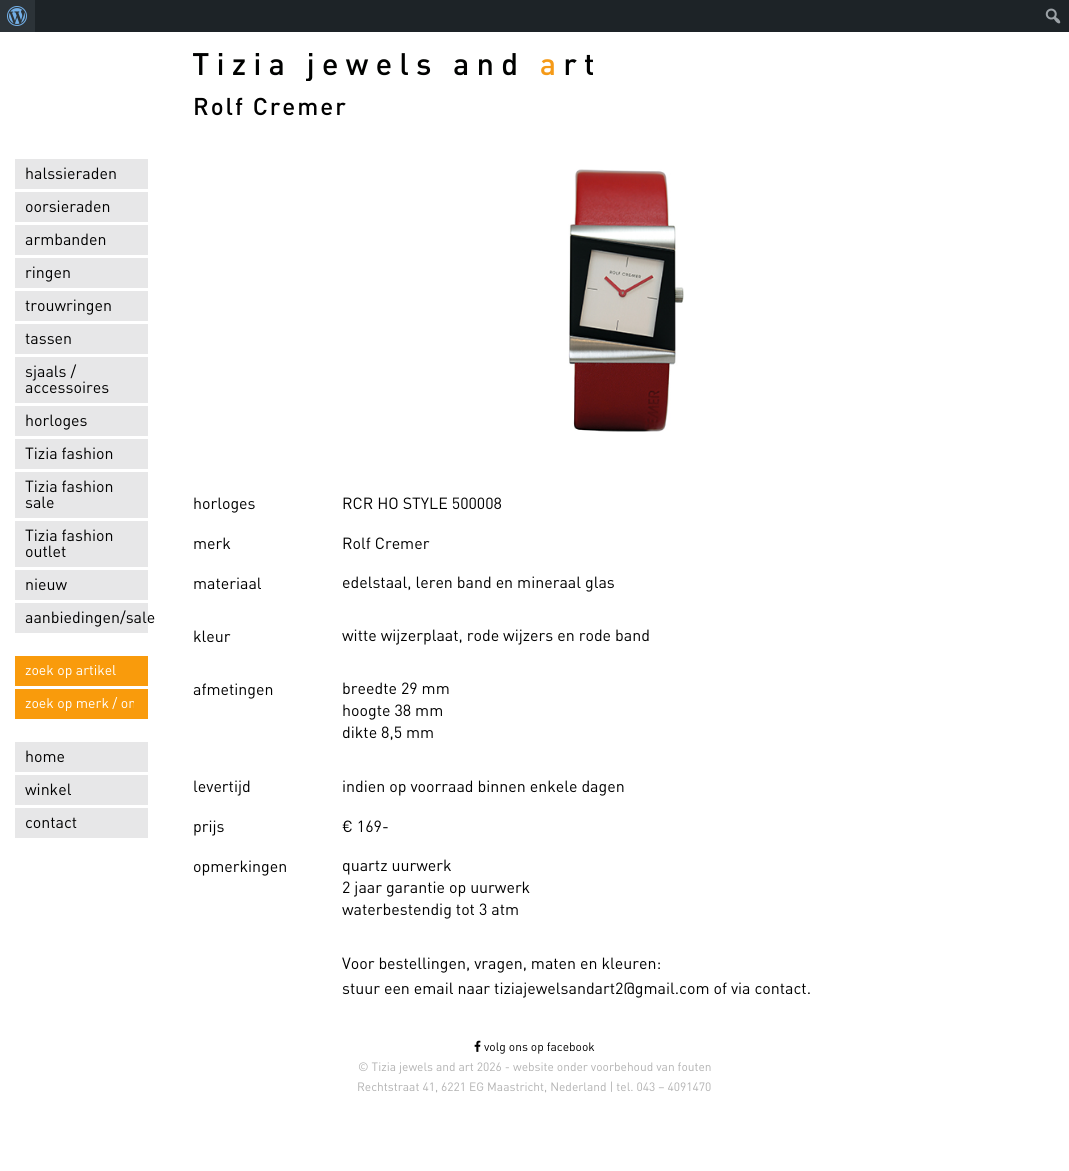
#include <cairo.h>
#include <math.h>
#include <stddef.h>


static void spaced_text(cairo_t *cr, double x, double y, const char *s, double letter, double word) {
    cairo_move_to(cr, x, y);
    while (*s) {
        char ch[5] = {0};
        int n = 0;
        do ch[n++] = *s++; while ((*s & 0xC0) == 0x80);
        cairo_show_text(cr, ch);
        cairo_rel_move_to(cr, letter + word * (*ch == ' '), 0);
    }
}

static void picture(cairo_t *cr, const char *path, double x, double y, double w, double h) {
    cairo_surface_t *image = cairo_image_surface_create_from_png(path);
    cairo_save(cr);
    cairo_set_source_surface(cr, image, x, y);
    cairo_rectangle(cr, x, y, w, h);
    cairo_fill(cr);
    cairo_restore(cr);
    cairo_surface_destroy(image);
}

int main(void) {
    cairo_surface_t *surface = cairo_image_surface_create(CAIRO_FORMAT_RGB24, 1069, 1171);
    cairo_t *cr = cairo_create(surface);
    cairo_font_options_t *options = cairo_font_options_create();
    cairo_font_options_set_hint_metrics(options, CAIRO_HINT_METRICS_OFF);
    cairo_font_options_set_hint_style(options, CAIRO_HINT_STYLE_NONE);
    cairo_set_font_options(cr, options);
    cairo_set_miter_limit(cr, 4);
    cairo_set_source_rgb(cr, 1, 1, 1);
    cairo_paint(cr);
    cairo_set_source_rgb(cr, 0.114, 0.137, 0.153);
    cairo_rectangle(cr, 35, 0, 1034, 32);
    cairo_fill(cr);
    cairo_set_source_rgb(cr, 0.173, 0.2, 0.22);
    cairo_rectangle(cr, 0, 0, 35, 32);
    cairo_fill(cr);
    picture(cr, "img1.png", 7, 6, 20, 20);
    picture(cr, "img2.png", 1045, 8, 16, 16);
    picture(cr, "img3.png", 193, 53, 400, 28);
    cairo_select_font_face(cr, "DIN Medium", CAIRO_FONT_SLANT_NORMAL, CAIRO_FONT_WEIGHT_NORMAL);
    cairo_set_font_size(cr, 24);
    cairo_set_source_rgb(cr, 0, 0, 0);
    spaced_text(cr, 193, 115, "Rolf Cremer", 2, 0);
    cairo_set_source_rgb(cr, 0.906, 0.906, 0.91);
    cairo_rectangle(cr, 15, 159, 133, 30);
    cairo_fill(cr);
    cairo_select_font_face(cr, "DIN", CAIRO_FONT_SLANT_NORMAL, CAIRO_FONT_WEIGHT_NORMAL);
    cairo_set_font_size(cr, 16);
    cairo_set_source_rgb(cr, 0, 0, 0);
    cairo_move_to(cr, 25, 179);
    cairo_show_text(cr, "halssieraden");
    cairo_set_source_rgb(cr, 0.906, 0.906, 0.91);
    cairo_rectangle(cr, 15, 192, 133, 30);
    cairo_fill(cr);
    cairo_set_source_rgb(cr, 0, 0, 0);
    cairo_move_to(cr, 25, 212);
    cairo_show_text(cr, "oorsieraden");
    cairo_set_source_rgb(cr, 0.906, 0.906, 0.91);
    cairo_rectangle(cr, 15, 225, 133, 30);
    cairo_fill(cr);
    cairo_set_source_rgb(cr, 0, 0, 0);
    cairo_move_to(cr, 25, 245);
    cairo_show_text(cr, "armbanden");
    cairo_set_source_rgb(cr, 0.906, 0.906, 0.91);
    cairo_rectangle(cr, 15, 258, 133, 30);
    cairo_fill(cr);
    cairo_set_source_rgb(cr, 0, 0, 0);
    cairo_move_to(cr, 25, 278);
    cairo_show_text(cr, "ringen");
    cairo_set_source_rgb(cr, 0.906, 0.906, 0.91);
    cairo_rectangle(cr, 15, 291, 133, 30);
    cairo_fill(cr);
    cairo_set_source_rgb(cr, 0, 0, 0);
    cairo_move_to(cr, 25, 311);
    cairo_show_text(cr, "trouwringen");
    cairo_set_source_rgb(cr, 0.906, 0.906, 0.91);
    cairo_rectangle(cr, 15, 324, 133, 30);
    cairo_fill(cr);
    cairo_set_source_rgb(cr, 0, 0, 0);
    cairo_move_to(cr, 25, 344);
    cairo_show_text(cr, "tassen");
    cairo_set_source_rgb(cr, 0.906, 0.906, 0.91);
    cairo_rectangle(cr, 15, 357, 133, 46);
    cairo_fill(cr);
    cairo_set_source_rgb(cr, 0, 0, 0);
    cairo_move_to(cr, 25, 377);
    cairo_show_text(cr, "sjaals /");
    cairo_move_to(cr, 25, 393);
    cairo_show_text(cr, "accessoires");
    cairo_set_source_rgb(cr, 0.906, 0.906, 0.91);
    cairo_rectangle(cr, 15, 406, 133, 30);
    cairo_fill(cr);
    cairo_set_source_rgb(cr, 0, 0, 0);
    cairo_move_to(cr, 25, 426);
    cairo_show_text(cr, "horloges");
    cairo_set_source_rgb(cr, 0.906, 0.906, 0.91);
    cairo_rectangle(cr, 15, 439, 133, 30);
    cairo_fill(cr);
    cairo_set_source_rgb(cr, 0, 0, 0);
    cairo_move_to(cr, 25, 459);
    cairo_show_text(cr, "Tizia fashion");
    cairo_set_source_rgb(cr, 0.906, 0.906, 0.91);
    cairo_rectangle(cr, 15, 472, 133, 46);
    cairo_fill(cr);
    cairo_set_source_rgb(cr, 0, 0, 0);
    cairo_move_to(cr, 25, 492);
    cairo_show_text(cr, "Tizia fashion");
    cairo_move_to(cr, 25, 508);
    cairo_show_text(cr, "sale");
    cairo_set_source_rgb(cr, 0.906, 0.906, 0.91);
    cairo_rectangle(cr, 15, 521, 133, 46);
    cairo_fill(cr);
    cairo_set_source_rgb(cr, 0, 0, 0);
    cairo_move_to(cr, 25, 541);
    cairo_show_text(cr, "Tizia fashion");
    cairo_move_to(cr, 25, 557);
    cairo_show_text(cr, "outlet");
    cairo_set_source_rgb(cr, 0.906, 0.906, 0.91);
    cairo_rectangle(cr, 15, 570, 133, 30);
    cairo_fill(cr);
    cairo_set_source_rgb(cr, 0, 0, 0);
    cairo_move_to(cr, 25, 590);
    cairo_show_text(cr, "nieuw");
    cairo_set_source_rgb(cr, 0.906, 0.906, 0.91);
    cairo_rectangle(cr, 15, 603, 133, 30);
    cairo_fill(cr);
    cairo_set_source_rgb(cr, 0, 0, 0);
    cairo_move_to(cr, 25, 623);
    cairo_show_text(cr, "aanbiedingen/sale");
    cairo_set_source_rgb(cr, 0.976, 0.608, 0.047);
    cairo_rectangle(cr, 15, 656, 133, 30);
    cairo_fill(cr);
    cairo_set_font_size(cr, 14);
    cairo_set_source_rgb(cr, 1, 1, 1);
    cairo_move_to(cr, 25, 675);
    cairo_show_text(cr, "zoek op artikel");
    cairo_set_source_rgb(cr, 0.976, 0.608, 0.047);
    cairo_rectangle(cr, 15, 689, 133, 30);
    cairo_fill(cr);
    cairo_save(cr);
    cairo_rectangle(cr, 25, 697, 109, 14);
    cairo_clip(cr);
    cairo_set_source_rgb(cr, 1, 1, 1);
    cairo_move_to(cr, 25, 708);
    cairo_show_text(cr, "zoek op merk / on");
    cairo_restore(cr);
    cairo_set_source_rgb(cr, 0.906, 0.906, 0.91);
    cairo_rectangle(cr, 15, 742, 133, 30);
    cairo_fill(cr);
    cairo_set_font_size(cr, 16);
    cairo_set_source_rgb(cr, 0, 0, 0);
    cairo_move_to(cr, 25, 762);
    cairo_show_text(cr, "home");
    cairo_set_source_rgb(cr, 0.906, 0.906, 0.91);
    cairo_rectangle(cr, 15, 775, 133, 30);
    cairo_fill(cr);
    cairo_set_source_rgb(cr, 0, 0, 0);
    cairo_move_to(cr, 25, 795);
    cairo_show_text(cr, "winkel");
    cairo_set_source_rgb(cr, 0.906, 0.906, 0.91);
    cairo_rectangle(cr, 15, 808, 133, 30);
    cairo_fill(cr);
    cairo_set_source_rgb(cr, 0, 0, 0);
    cairo_move_to(cr, 25, 828);
    cairo_show_text(cr, "contact");
    picture(cr, "img4.png", 568, 169, 116, 263);
    cairo_move_to(cr, 193, 509);
    cairo_show_text(cr, "horloges");
    cairo_move_to(cr, 342, 509);
    cairo_show_text(cr, "RCR HO STYLE 500008");
    cairo_move_to(cr, 193, 549);
    cairo_show_text(cr, "merk");
    cairo_move_to(cr, 342, 549);
    cairo_show_text(cr, "Rolf Cremer");
    cairo_move_to(cr, 193, 589);
    cairo_show_text(cr, "materiaal");
    cairo_move_to(cr, 342, 588);
    cairo_show_text(cr, "edelstaal, leren band en mineraal glas");
    cairo_move_to(cr, 193, 642);
    cairo_show_text(cr, "kleur");
    cairo_move_to(cr, 342, 641);
    cairo_show_text(cr, "witte wijzerplaat, rode wijzers en rode band");
    cairo_move_to(cr, 193, 695);
    cairo_show_text(cr, "afmetingen");
    cairo_move_to(cr, 342, 694);
    cairo_show_text(cr, "breedte 29 mm");
    cairo_move_to(cr, 342, 716);
    cairo_show_text(cr, "hoogte 38 mm");
    cairo_move_to(cr, 342, 738);
    cairo_show_text(cr, "dikte 8,5 mm");
    cairo_move_to(cr, 193, 792);
    cairo_show_text(cr, "levertijd");
    cairo_move_to(cr, 342, 792);
    cairo_show_text(cr, "indien op voorraad binnen enkele dagen");
    cairo_move_to(cr, 193, 832);
    cairo_show_text(cr, "prijs");
    cairo_move_to(cr, 342, 832);
    cairo_show_text(cr, "€ 169-");
    cairo_move_to(cr, 193, 872);
    cairo_show_text(cr, "opmerkingen");
    cairo_move_to(cr, 342, 871);
    cairo_show_text(cr, "quartz uurwerk");
    cairo_move_to(cr, 342, 893);
    cairo_show_text(cr, "2 jaar garantie op uurwerk");
    cairo_move_to(cr, 342, 915);
    cairo_show_text(cr, "waterbestendig tot 3 atm");
    cairo_move_to(cr, 342, 969);
    cairo_show_text(cr, "Voor bestellingen, vragen, maten en kleuren:");
    cairo_move_to(cr, 342, 994);
    cairo_show_text(cr, "stuur een email naar tiziajewelsandart2@gmail.com of via contact.");
    picture(cr, "img5.png", 474, 1040, 7, 12);
    cairo_set_font_size(cr, 12);
    cairo_move_to(cr, 484, 1051);
    cairo_show_text(cr, "volg ons op facebook");
    cairo_set_source_rgb(cr, 0.698, 0.698, 0.698);
    cairo_move_to(cr, 358, 1071);
    cairo_show_text(cr, "© Tizia jewels and art 2026 - website onder voorbehoud van fouten");
    cairo_move_to(cr, 357, 1091);
    cairo_show_text(cr, "Rechtstraat 41, 6221 EG Maastricht, Nederland | tel. 043 – 4091470");
    cairo_surface_write_to_png(surface, "page.png");
    cairo_font_options_destroy(options);
    cairo_destroy(cr);
    cairo_surface_destroy(surface);
    return 0;
}
